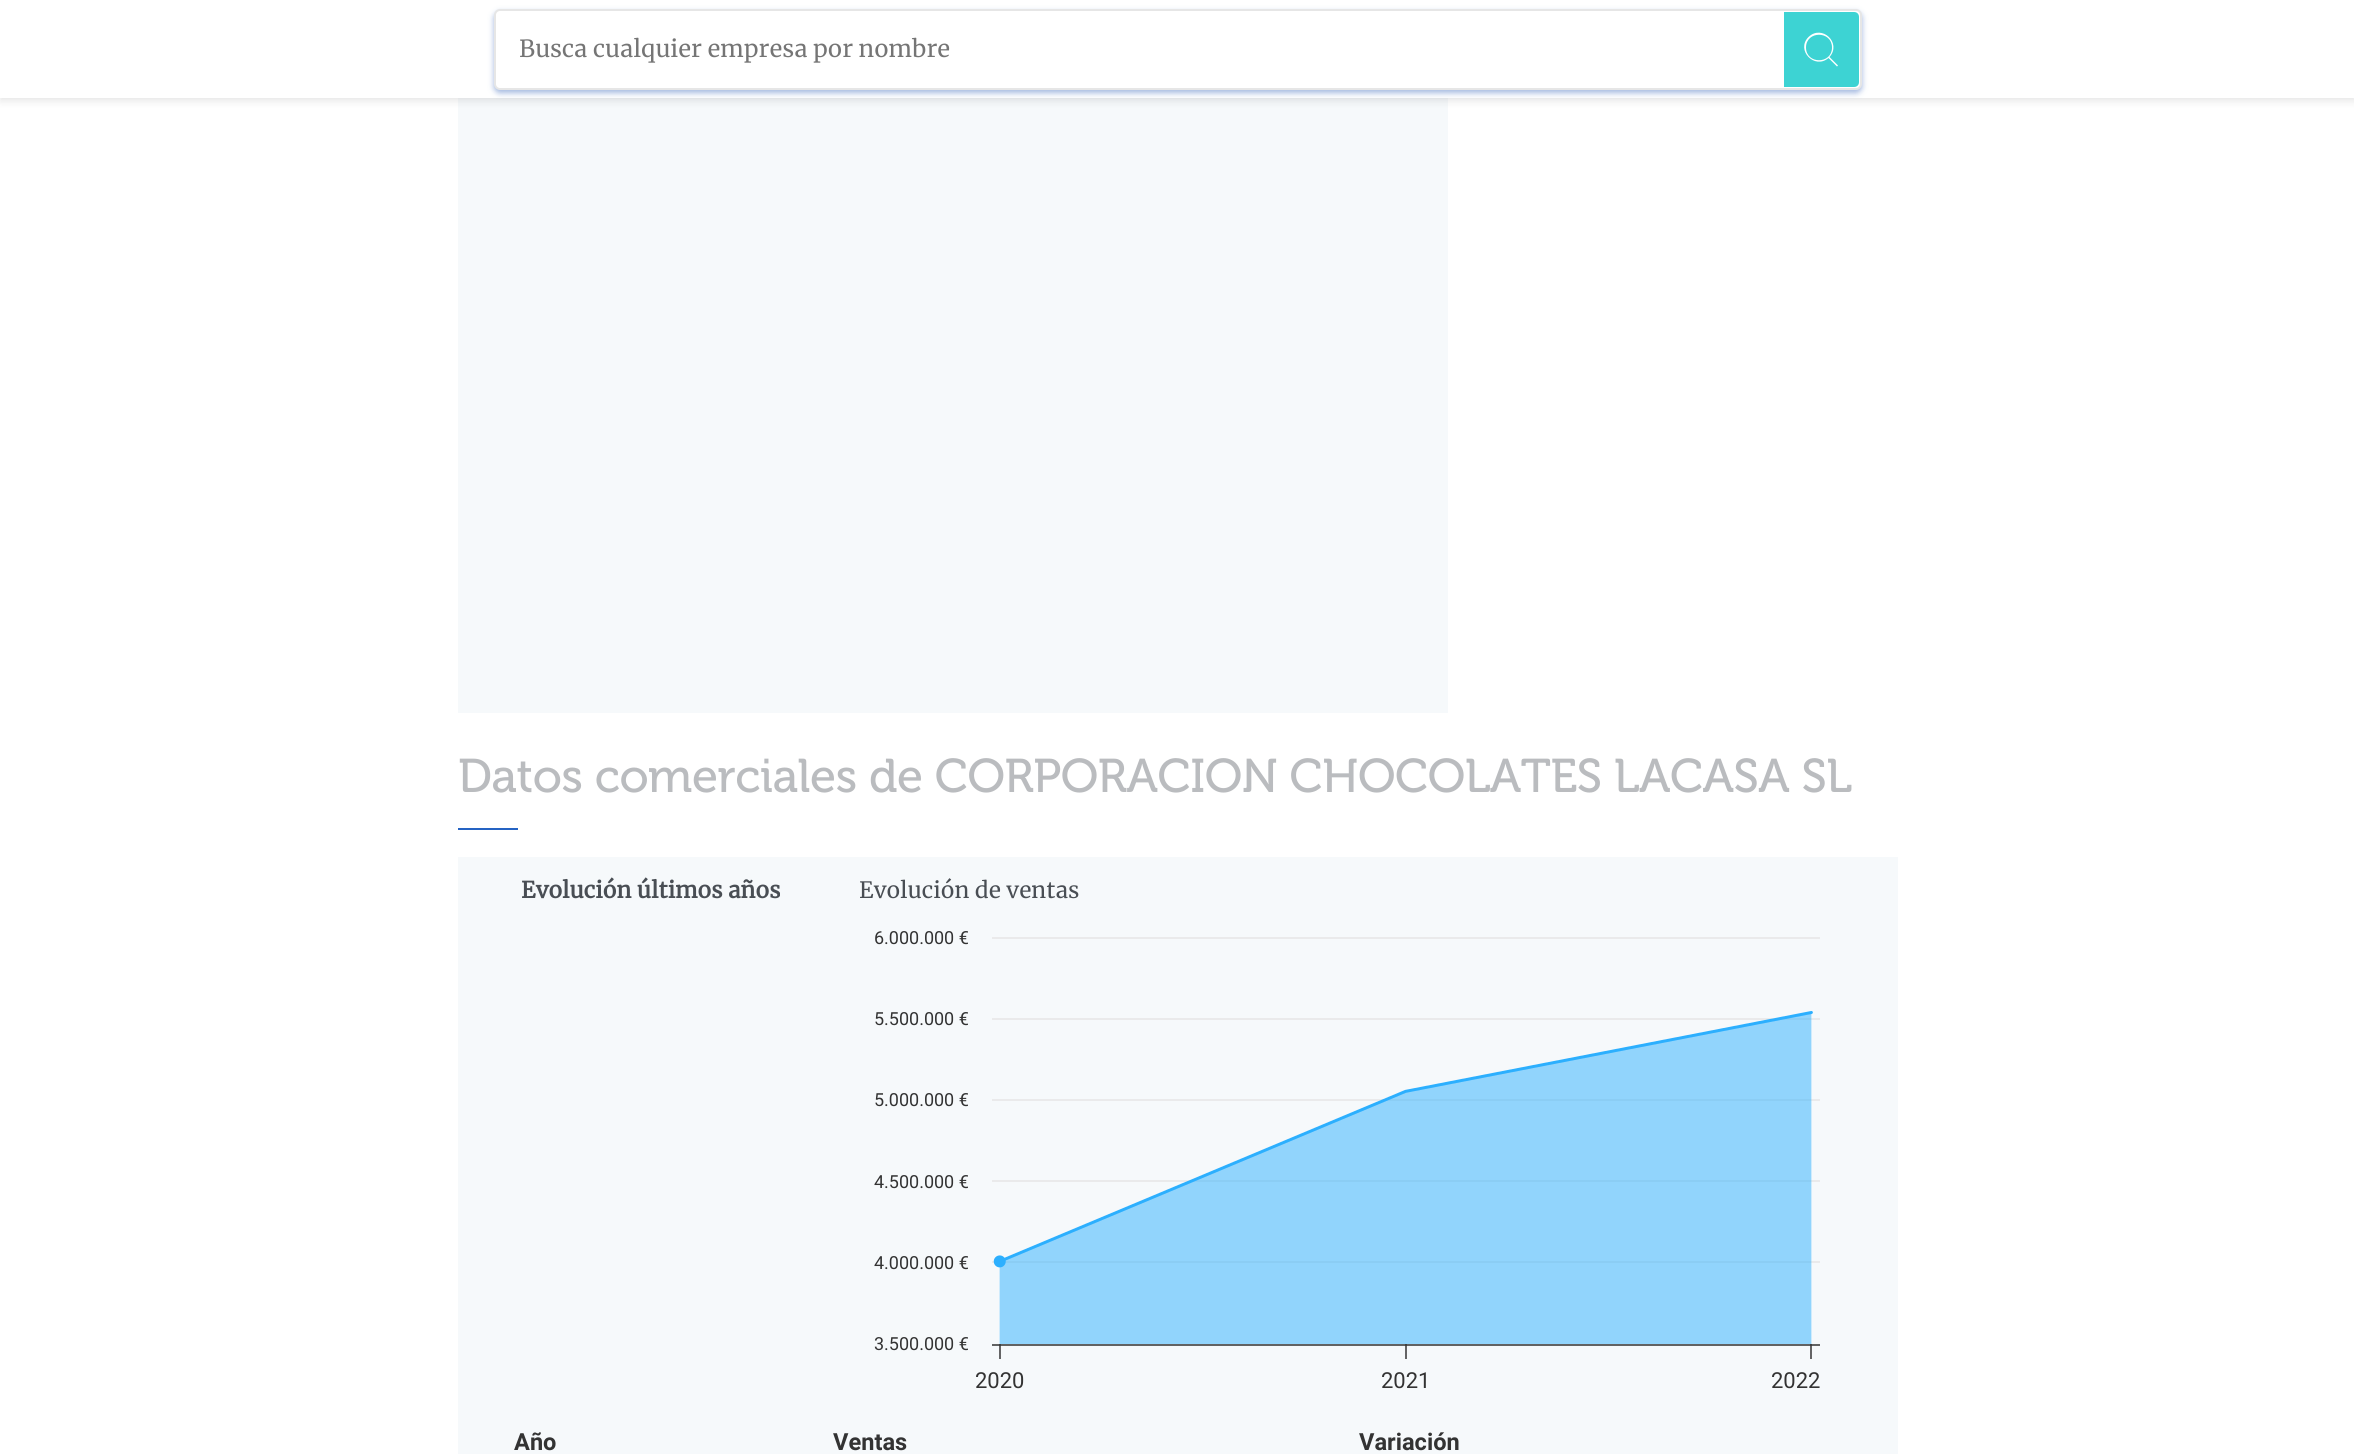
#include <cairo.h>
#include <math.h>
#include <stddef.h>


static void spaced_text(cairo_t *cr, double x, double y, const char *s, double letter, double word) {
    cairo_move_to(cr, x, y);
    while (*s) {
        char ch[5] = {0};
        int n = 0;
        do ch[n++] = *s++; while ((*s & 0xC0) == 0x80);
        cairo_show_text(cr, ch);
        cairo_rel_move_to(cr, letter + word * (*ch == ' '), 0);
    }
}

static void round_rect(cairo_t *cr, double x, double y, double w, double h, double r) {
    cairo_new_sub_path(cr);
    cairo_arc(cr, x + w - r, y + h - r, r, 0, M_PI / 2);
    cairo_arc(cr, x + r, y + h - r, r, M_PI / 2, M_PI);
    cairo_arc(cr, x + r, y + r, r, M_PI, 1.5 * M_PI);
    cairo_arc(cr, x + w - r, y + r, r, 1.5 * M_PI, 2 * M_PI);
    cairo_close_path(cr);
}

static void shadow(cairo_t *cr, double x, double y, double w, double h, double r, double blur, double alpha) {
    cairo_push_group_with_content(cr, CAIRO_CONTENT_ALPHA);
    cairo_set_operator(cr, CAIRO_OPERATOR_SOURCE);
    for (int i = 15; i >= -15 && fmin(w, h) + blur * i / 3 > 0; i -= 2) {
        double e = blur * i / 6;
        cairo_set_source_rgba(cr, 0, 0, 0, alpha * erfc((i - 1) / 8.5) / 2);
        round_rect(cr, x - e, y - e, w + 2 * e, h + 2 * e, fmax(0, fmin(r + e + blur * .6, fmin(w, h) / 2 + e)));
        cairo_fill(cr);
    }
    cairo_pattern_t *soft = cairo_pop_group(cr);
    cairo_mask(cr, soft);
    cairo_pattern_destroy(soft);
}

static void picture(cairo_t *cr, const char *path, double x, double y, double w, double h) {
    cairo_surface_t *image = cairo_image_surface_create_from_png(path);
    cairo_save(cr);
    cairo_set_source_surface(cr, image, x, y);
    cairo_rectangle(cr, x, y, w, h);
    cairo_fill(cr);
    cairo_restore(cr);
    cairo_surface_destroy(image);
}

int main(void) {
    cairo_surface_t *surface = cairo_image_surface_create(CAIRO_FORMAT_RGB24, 2354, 1454);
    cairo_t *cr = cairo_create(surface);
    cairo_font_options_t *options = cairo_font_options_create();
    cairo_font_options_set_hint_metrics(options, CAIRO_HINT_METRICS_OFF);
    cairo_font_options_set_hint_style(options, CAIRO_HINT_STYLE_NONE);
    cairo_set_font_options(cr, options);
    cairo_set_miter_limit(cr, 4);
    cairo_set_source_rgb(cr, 1, 1, 1);
    cairo_paint(cr);
    cairo_set_source_rgb(cr, 0.961, 0.976, 0.984);
    cairo_rectangle(cr, 458, 98, 990, 615);
    cairo_fill(cr);
    cairo_set_source_rgb(cr, 0, 0, 0);
    shadow(cr, 0, 3, 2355, 98, 0, 4, 0.1);
    cairo_set_source_rgb(cr, 1, 1, 1);
    cairo_rectangle(cr, 0, 0, 2354, 98);
    cairo_fill(cr);
    cairo_set_source_rgb(cr, 0.098, 0.306, 0.694);
    shadow(cr, 494, 12, 1368, 81, 6, 3, 0.4);
    cairo_set_source_rgb(cr, 1, 1, 1);
    round_rect(cr, 495, 10, 1366, 79, 5);
    cairo_fill_preserve(cr);
    cairo_set_source_rgb(cr, 0.902, 0.902, 0.902);
    cairo_stroke(cr);
    cairo_select_font_face(cr, "Merriweather", CAIRO_FONT_SLANT_NORMAL, CAIRO_FONT_WEIGHT_NORMAL);
    cairo_set_font_size(cr, 23.6);
    cairo_set_source_rgb(cr, 0.459, 0.459, 0.459);
    cairo_move_to(cr, 519, 57);
    cairo_show_text(cr, "Busca cualquier empresa por nombre");
    cairo_set_source_rgb(cr, 0.239, 0.827, 0.827);
    cairo_new_path(cr);
    cairo_move_to(cr, 1784, 12);
    cairo_line_to(cr, 1854, 12);
    cairo_curve_to(cr, 1857, 12, 1859, 14, 1859, 17);
    cairo_line_to(cr, 1859, 82);
    cairo_curve_to(cr, 1859, 85, 1857, 87, 1854, 87);
    cairo_line_to(cr, 1784, 87);
    cairo_close_path(cr);
    cairo_fill(cr);
    cairo_set_source_rgb(cr, 1, 1, 1);
    cairo_new_path(cr);
    cairo_move_to(cr, 1806, 47.5);
    cairo_curve_to(cr, 1806, 30.5, 1832, 30.5, 1832, 47.5);
    cairo_curve_to(cr, 1832, 64.5, 1806, 64.5, 1806, 47.5);
    cairo_close_path(cr);
    cairo_move_to(cr, 1838, 65.5);
    cairo_line_to(cr, 1829.5, 57);
    cairo_curve_to(cr, 1842, 43, 1822, 24, 1808.5, 37);
    cairo_curve_to(cr, 1795.5, 50, 1814.5, 70, 1828.5, 58);
    cairo_line_to(cr, 1837, 66.5);
    cairo_close_path(cr);
    cairo_fill(cr);
    cairo_select_font_face(cr, "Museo", CAIRO_FONT_SLANT_NORMAL, CAIRO_FONT_WEIGHT_NORMAL);
    cairo_set_font_size(cr, 47.25);
    cairo_set_source_rgb(cr, 0.729, 0.737, 0.749);
    spaced_text(cr, 458, 792, "Datos comerciales de CORPORACION CHOCOLATES LACASA SL", -0.45, 0);
    cairo_set_source_rgb(cr, 0.145, 0.388, 0.765);
    cairo_rectangle(cr, 458, 828, 60, 2);
    cairo_fill(cr);
    cairo_set_source_rgb(cr, 0.961, 0.976, 0.984);
    cairo_rectangle(cr, 458, 857, 1440, 597);
    cairo_fill(cr);
    cairo_select_font_face(cr, "Merriweather", CAIRO_FONT_SLANT_NORMAL, CAIRO_FONT_WEIGHT_BOLD);
    cairo_set_font_size(cr, 22.5);
    cairo_set_source_rgb(cr, 0.286, 0.306, 0.329);
    cairo_move_to(cr, 521, 898);
    cairo_show_text(cr, "Evolución últimos años");
    cairo_select_font_face(cr, "Merriweather", CAIRO_FONT_SLANT_NORMAL, CAIRO_FONT_WEIGHT_NORMAL);
    cairo_move_to(cr, 859, 898);
    cairo_show_text(cr, "Evolución de ventas");
    cairo_select_font_face(cr, "Roboto", CAIRO_FONT_SLANT_NORMAL, CAIRO_FONT_WEIGHT_NORMAL);
    cairo_set_font_size(cr, 18);
    cairo_set_source_rgb(cr, 0.2, 0.2, 0.2);
    cairo_move_to(cr, 874, 944);
    cairo_show_text(cr, "6.000.000 €");
    picture(cr, "img1.png", 992, 937, 828, 422);
    cairo_move_to(cr, 874, 1025);
    cairo_show_text(cr, "5.500.000 €");
    cairo_move_to(cr, 874, 1106);
    cairo_show_text(cr, "5.000.000 €");
    cairo_move_to(cr, 874, 1188);
    cairo_show_text(cr, "4.500.000 €");
    cairo_move_to(cr, 874, 1269);
    cairo_show_text(cr, "4.000.000 €");
    cairo_move_to(cr, 874, 1350);
    cairo_show_text(cr, "3.500.000 €");
    cairo_set_font_size(cr, 22);
    cairo_move_to(cr, 975, 1388);
    cairo_show_text(cr, "2020");
    cairo_move_to(cr, 1381, 1388);
    cairo_show_text(cr, "2021");
    cairo_move_to(cr, 1771, 1388);
    cairo_show_text(cr, "2022");
    cairo_select_font_face(cr, "Roboto", CAIRO_FONT_SLANT_NORMAL, CAIRO_FONT_WEIGHT_BOLD);
    cairo_set_font_size(cr, 23.6);
    cairo_move_to(cr, 514, 1450);
    cairo_show_text(cr, "Año");
    cairo_move_to(cr, 833, 1450);
    cairo_show_text(cr, "Ventas");
    cairo_move_to(cr, 1359, 1450);
    cairo_show_text(cr, "Variación");
    cairo_surface_write_to_png(surface, "page.png");
    cairo_font_options_destroy(options);
    cairo_destroy(cr);
    cairo_surface_destroy(surface);
    return 0;
}
